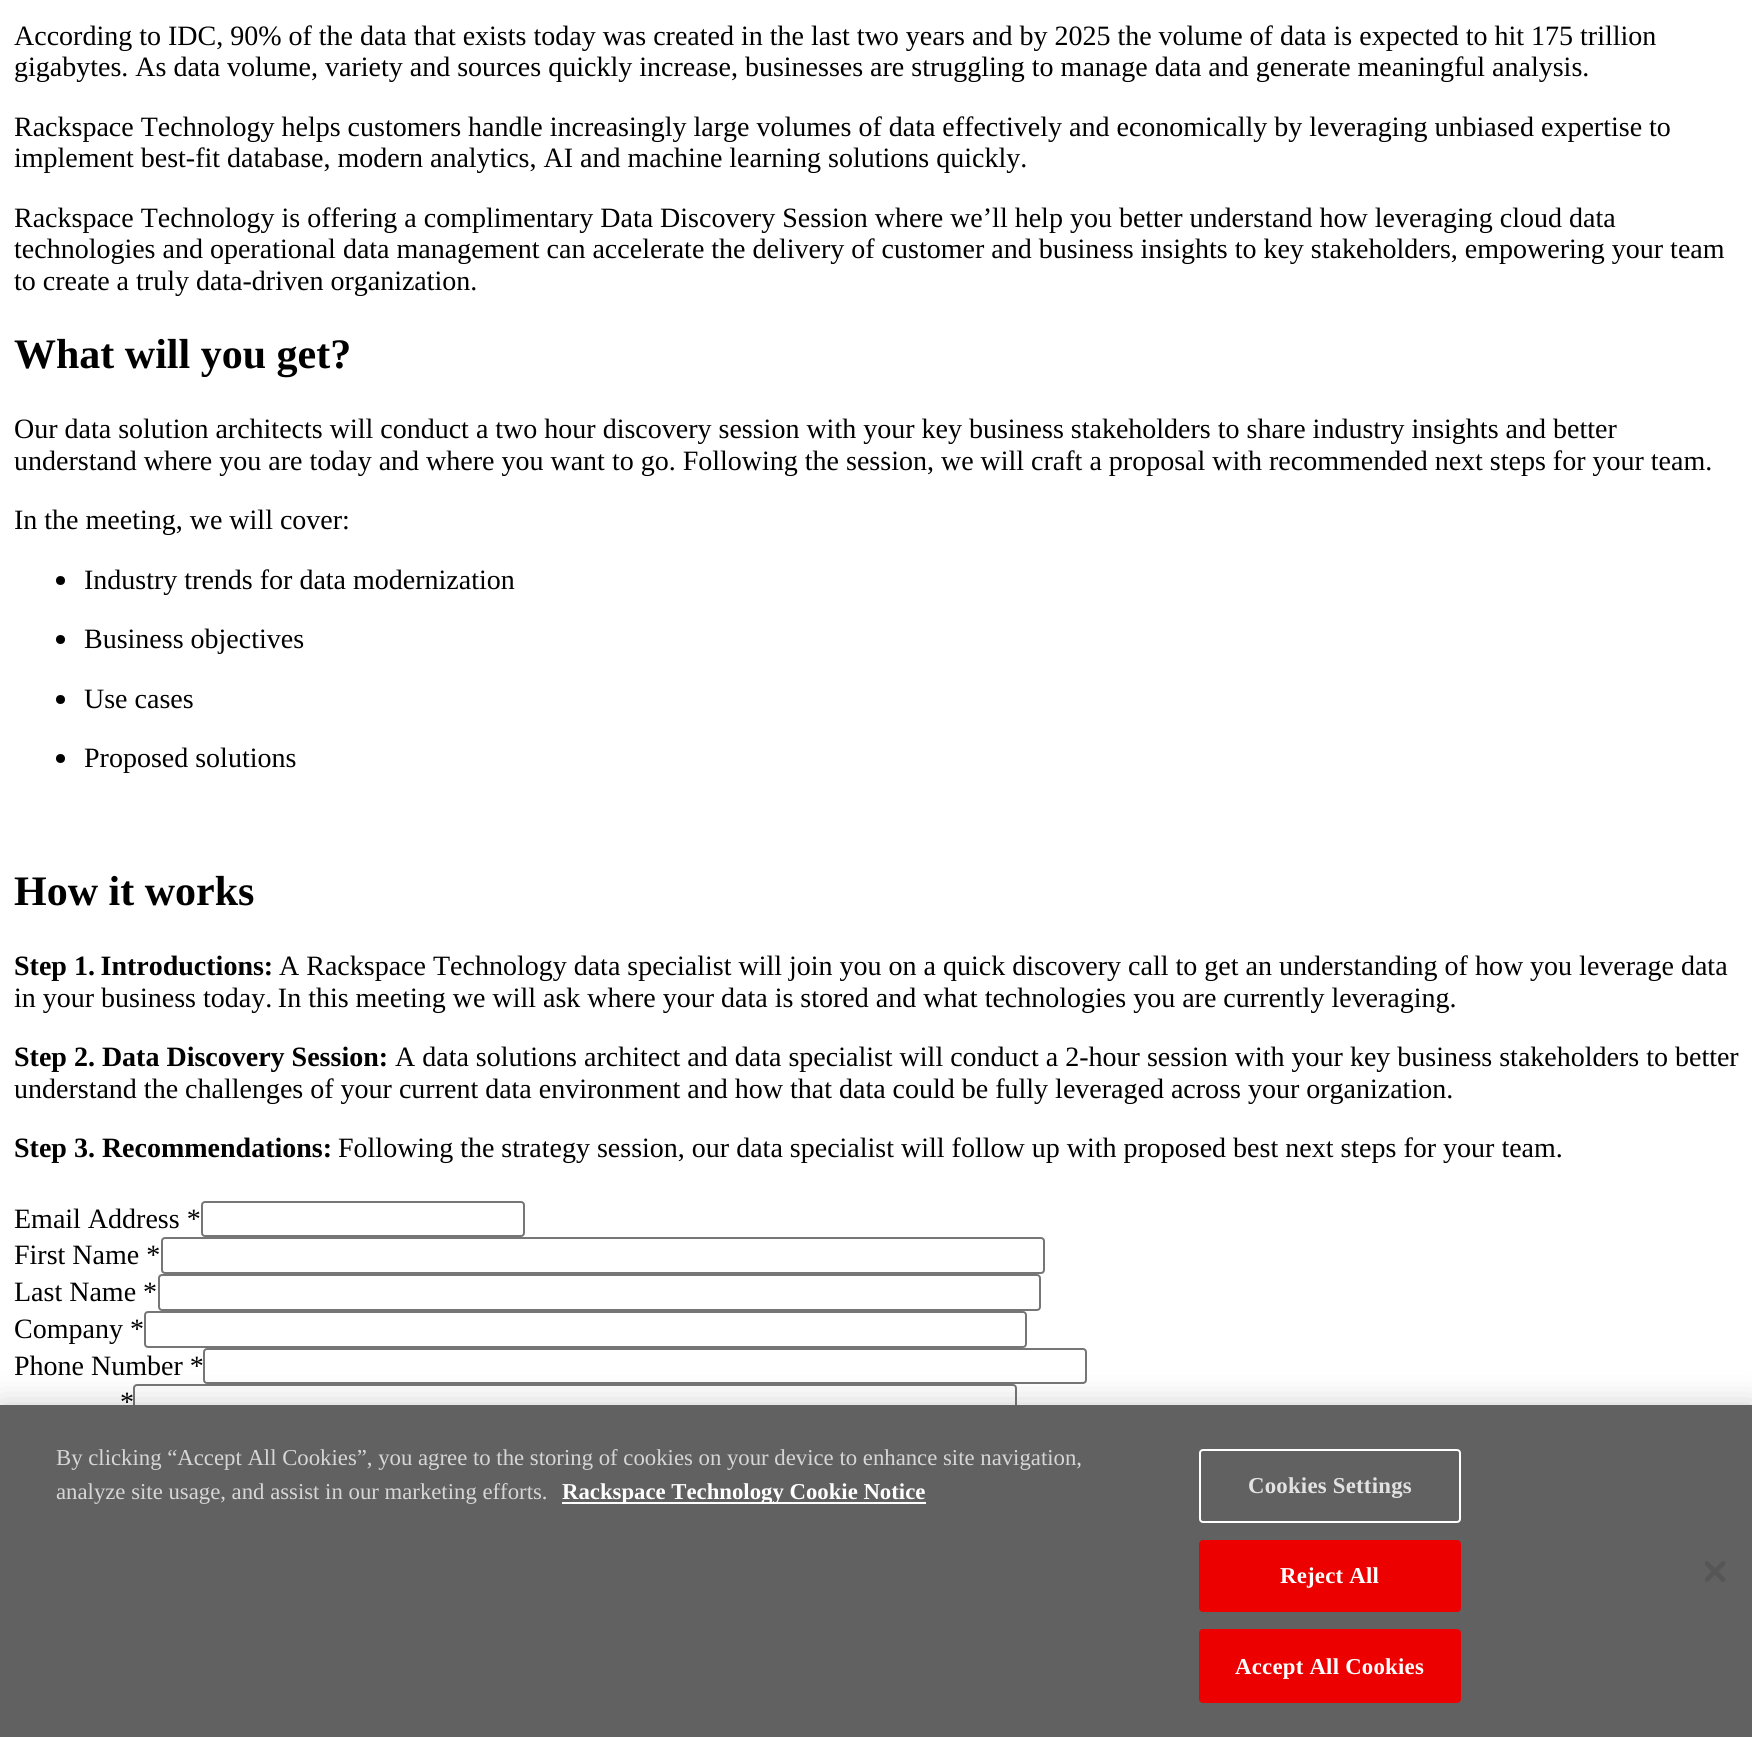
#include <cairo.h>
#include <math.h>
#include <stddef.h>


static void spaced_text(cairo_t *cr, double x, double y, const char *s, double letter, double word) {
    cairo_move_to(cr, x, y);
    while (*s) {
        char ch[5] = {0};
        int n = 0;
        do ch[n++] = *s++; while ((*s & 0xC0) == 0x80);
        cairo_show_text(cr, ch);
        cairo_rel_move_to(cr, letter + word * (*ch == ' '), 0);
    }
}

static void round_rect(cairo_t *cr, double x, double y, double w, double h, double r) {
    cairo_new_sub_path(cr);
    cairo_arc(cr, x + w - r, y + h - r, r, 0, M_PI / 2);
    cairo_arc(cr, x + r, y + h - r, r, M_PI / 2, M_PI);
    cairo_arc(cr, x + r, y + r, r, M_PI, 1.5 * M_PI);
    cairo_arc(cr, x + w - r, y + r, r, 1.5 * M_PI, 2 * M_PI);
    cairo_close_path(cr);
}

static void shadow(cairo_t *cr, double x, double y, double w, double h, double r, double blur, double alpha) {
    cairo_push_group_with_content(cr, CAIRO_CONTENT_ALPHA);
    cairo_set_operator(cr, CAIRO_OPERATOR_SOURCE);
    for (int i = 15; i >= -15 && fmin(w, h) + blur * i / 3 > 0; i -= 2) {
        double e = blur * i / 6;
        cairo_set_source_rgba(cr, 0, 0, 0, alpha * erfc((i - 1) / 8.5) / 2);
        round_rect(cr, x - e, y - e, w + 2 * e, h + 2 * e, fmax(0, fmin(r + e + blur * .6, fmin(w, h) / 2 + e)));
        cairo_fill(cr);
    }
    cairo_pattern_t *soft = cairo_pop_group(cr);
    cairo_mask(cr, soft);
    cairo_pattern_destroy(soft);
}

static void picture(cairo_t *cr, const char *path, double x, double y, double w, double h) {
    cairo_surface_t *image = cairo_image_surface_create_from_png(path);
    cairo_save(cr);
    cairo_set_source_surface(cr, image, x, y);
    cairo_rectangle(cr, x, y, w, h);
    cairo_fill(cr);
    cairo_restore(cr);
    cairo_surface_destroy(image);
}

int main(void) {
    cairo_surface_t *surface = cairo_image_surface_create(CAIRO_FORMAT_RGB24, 1752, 1737);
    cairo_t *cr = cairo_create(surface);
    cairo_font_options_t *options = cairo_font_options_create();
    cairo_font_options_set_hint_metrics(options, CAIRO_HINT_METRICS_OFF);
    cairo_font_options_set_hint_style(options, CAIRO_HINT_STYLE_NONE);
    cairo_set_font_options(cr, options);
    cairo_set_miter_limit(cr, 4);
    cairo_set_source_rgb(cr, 1, 1, 1);
    cairo_paint(cr);
    cairo_select_font_face(cr, "Liberation Serif", CAIRO_FONT_SLANT_NORMAL, CAIRO_FONT_WEIGHT_NORMAL);
    cairo_set_font_size(cr, 28);
    cairo_set_source_rgb(cr, 0, 0, 0);
    cairo_move_to(cr, 14, 45);
    cairo_show_text(cr, "According to IDC, 90% of the data that exists today was created in the last two years and by 2025 the volume of data is expected to hit 175 trillion");
    cairo_move_to(cr, 14, 76);
    cairo_show_text(cr, "gigabytes. As data volume, variety and sources quickly increase, businesses are struggling to manage data and generate meaningful analysis.");
    cairo_move_to(cr, 14, 136);
    cairo_show_text(cr, "Rackspace Technology helps customers handle increasingly large volumes of data effectively and economically by leveraging unbiased expertise to");
    cairo_move_to(cr, 14, 167);
    cairo_show_text(cr, "implement best-fit database, modern analytics, AI and machine learning solutions quickly.");
    cairo_move_to(cr, 14, 227);
    cairo_show_text(cr, "Rackspace Technology is offering a complimentary Data Discovery Session where we’ll help you better understand how leveraging cloud data");
    cairo_move_to(cr, 14, 258);
    cairo_show_text(cr, "technologies and operational data management can accelerate the delivery of customer and business insights to key stakeholders, empowering your team");
    cairo_move_to(cr, 14, 290);
    cairo_show_text(cr, "to create a truly data-driven organization.");
    cairo_select_font_face(cr, "Liberation Serif", CAIRO_FONT_SLANT_NORMAL, CAIRO_FONT_WEIGHT_BOLD);
    cairo_set_font_size(cr, 42);
    cairo_move_to(cr, 14, 368);
    cairo_show_text(cr, "What will you get?");
    cairo_select_font_face(cr, "Liberation Serif", CAIRO_FONT_SLANT_NORMAL, CAIRO_FONT_WEIGHT_NORMAL);
    cairo_set_font_size(cr, 28);
    cairo_move_to(cr, 14, 438);
    cairo_show_text(cr, "Our data solution architects will conduct a two hour discovery session with your key business stakeholders to share industry insights and better");
    cairo_move_to(cr, 14, 470);
    cairo_show_text(cr, "understand where you are today and where you want to go. Following the session, we will craft a proposal with recommended next steps for your team.");
    cairo_move_to(cr, 14, 529);
    cairo_show_text(cr, "In the meeting, we will cover:");
    cairo_new_path(cr);
    cairo_arc(cr, 60.5, 580.5, 4.5, 0, 2 * M_PI);
    cairo_fill(cr);
    cairo_move_to(cr, 84, 589);
    cairo_show_text(cr, "Industry trends for data modernization");
    cairo_new_path(cr);
    cairo_arc(cr, 60.5, 639.5, 4.5, 0, 2 * M_PI);
    cairo_fill(cr);
    cairo_move_to(cr, 84, 648);
    cairo_show_text(cr, "Business objectives");
    cairo_new_path(cr);
    cairo_arc(cr, 60.5, 699.5, 4.5, 0, 2 * M_PI);
    cairo_fill(cr);
    cairo_move_to(cr, 84, 708);
    cairo_show_text(cr, "Use cases");
    cairo_new_path(cr);
    cairo_arc(cr, 60.5, 758.5, 4.5, 0, 2 * M_PI);
    cairo_fill(cr);
    cairo_move_to(cr, 84, 767);
    cairo_show_text(cr, "Proposed solutions");
    cairo_select_font_face(cr, "Liberation Serif", CAIRO_FONT_SLANT_NORMAL, CAIRO_FONT_WEIGHT_BOLD);
    cairo_set_font_size(cr, 42);
    cairo_move_to(cr, 14, 905);
    cairo_show_text(cr, "How it works");
    cairo_set_font_size(cr, 28);
    cairo_move_to(cr, 14, 975);
    cairo_show_text(cr, "Step 1. Introductions:");
    cairo_select_font_face(cr, "Liberation Serif", CAIRO_FONT_SLANT_NORMAL, CAIRO_FONT_WEIGHT_NORMAL);
    cairo_move_to(cr, 279, 975);
    cairo_show_text(cr, "A Rackspace Technology data specialist will join you on a quick discovery call to get an understanding of how you leverage data");
    cairo_move_to(cr, 14, 1007);
    cairo_show_text(cr, "in your business today. In this meeting we will ask where your data is stored and what technologies you are currently leveraging.");
    cairo_select_font_face(cr, "Liberation Serif", CAIRO_FONT_SLANT_NORMAL, CAIRO_FONT_WEIGHT_BOLD);
    cairo_move_to(cr, 14, 1066);
    cairo_show_text(cr, "Step 2. Data Discovery Session:");
    cairo_select_font_face(cr, "Liberation Serif", CAIRO_FONT_SLANT_NORMAL, CAIRO_FONT_WEIGHT_NORMAL);
    cairo_move_to(cr, 395, 1066);
    cairo_show_text(cr, "A data solutions architect and data specialist will conduct a 2-hour session with your key business stakeholders to better");
    cairo_move_to(cr, 14, 1098);
    cairo_show_text(cr, "understand the challenges of your current data environment and how that data could be fully leveraged across your organization.");
    cairo_select_font_face(cr, "Liberation Serif", CAIRO_FONT_SLANT_NORMAL, CAIRO_FONT_WEIGHT_BOLD);
    cairo_move_to(cr, 14, 1157);
    cairo_show_text(cr, "Step 3. Recommendations:");
    cairo_select_font_face(cr, "Liberation Serif", CAIRO_FONT_SLANT_NORMAL, CAIRO_FONT_WEIGHT_NORMAL);
    cairo_move_to(cr, 338, 1157);
    cairo_show_text(cr, "Following the strategy session, our data specialist will follow up with proposed best next steps for your team.");
    cairo_move_to(cr, 14, 1228);
    cairo_show_text(cr, "Email Address *");
    round_rect(cr, 202, 1202, 322, 34, 3);
    cairo_set_source_rgb(cr, 0.463, 0.463, 0.463);
    cairo_stroke(cr);
    cairo_set_source_rgb(cr, 0, 0, 0);
    cairo_move_to(cr, 14, 1264);
    cairo_show_text(cr, "First Name *");
    round_rect(cr, 162, 1238, 882, 35, 3);
    cairo_set_source_rgb(cr, 0.463, 0.463, 0.463);
    cairo_stroke(cr);
    cairo_set_source_rgb(cr, 0, 0, 0);
    cairo_move_to(cr, 14, 1301);
    cairo_show_text(cr, "Last Name *");
    round_rect(cr, 159, 1275, 881, 35, 3);
    cairo_set_source_rgb(cr, 0.463, 0.463, 0.463);
    cairo_stroke(cr);
    cairo_set_source_rgb(cr, 0, 0, 0);
    cairo_move_to(cr, 14, 1338);
    cairo_show_text(cr, "Company *");
    round_rect(cr, 145, 1312, 881, 35, 3);
    cairo_set_source_rgb(cr, 0.463, 0.463, 0.463);
    cairo_stroke(cr);
    cairo_set_source_rgb(cr, 0, 0, 0);
    cairo_move_to(cr, 14, 1375);
    cairo_show_text(cr, "Phone Number *");
    round_rect(cr, 204, 1349, 882, 34, 3);
    cairo_set_source_rgb(cr, 0.463, 0.463, 0.463);
    cairo_stroke(cr);
    cairo_set_source_rgb(cr, 0, 0, 0);
    cairo_move_to(cr, 120, 1411);
    cairo_show_text(cr, "*");
    round_rect(cr, 134, 1385, 882, 35, 3);
    cairo_set_source_rgb(cr, 0.463, 0.463, 0.463);
    cairo_stroke(cr);
    cairo_set_source_rgb(cr, 0, 0, 0);
    shadow(cr, 0, 1405, 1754, 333, 0, 16, 0.2);
    cairo_set_source_rgb(cr, 0.38, 0.38, 0.38);
    cairo_rectangle(cr, 0, 1405, 1752, 332);
    cairo_fill(cr);
    cairo_set_font_size(cr, 22.75);
    cairo_set_source_rgb(cr, 0.839, 0.839, 0.839);
    cairo_move_to(cr, 56, 1465);
    cairo_show_text(cr, "By clicking “Accept All Cookies”, you agree to the storing of cookies on your device to enhance site navigation,");
    cairo_move_to(cr, 56, 1499);
    cairo_show_text(cr, "analyze site usage, and assist in our marketing efforts.");
    cairo_set_source_rgb(cr, 1, 1, 1);
    cairo_rectangle(cr, 562, 1502, 364, 2);
    cairo_fill(cr);
    cairo_select_font_face(cr, "Liberation Serif", CAIRO_FONT_SLANT_NORMAL, CAIRO_FONT_WEIGHT_BOLD);
    cairo_move_to(cr, 562, 1499);
    cairo_show_text(cr, "Rackspace Technology Cookie Notice");
    round_rect(cr, 1200, 1450, 260, 72, 3);
    cairo_stroke(cr);
    cairo_set_source_rgb(cr, 0.886, 0.886, 0.886);
    spaced_text(cr, 1248, 1493, "Cookies Settings", 0.25, 0);
    cairo_set_source_rgb(cr, 0.922, 0, 0);
    round_rect(cr, 1200, 1541, 260, 70, 3);
    cairo_fill_preserve(cr);
    cairo_stroke(cr);
    cairo_set_source_rgb(cr, 1, 1, 1);
    spaced_text(cr, 1280, 1583, "Reject All", 0.25, 0);
    cairo_set_source_rgb(cr, 0.922, 0, 0);
    round_rect(cr, 1200, 1630, 260, 72, 3);
    cairo_fill_preserve(cr);
    cairo_stroke(cr);
    cairo_set_source_rgb(cr, 1, 1, 1);
    spaced_text(cr, 1235, 1674, "Accept All Cookies", 0.25, 0);
    picture(cr, "img1.png", 1705, 1561, 21, 21);
    cairo_surface_write_to_png(surface, "page.png");
    cairo_font_options_destroy(options);
    cairo_destroy(cr);
    cairo_surface_destroy(surface);
    return 0;
}
